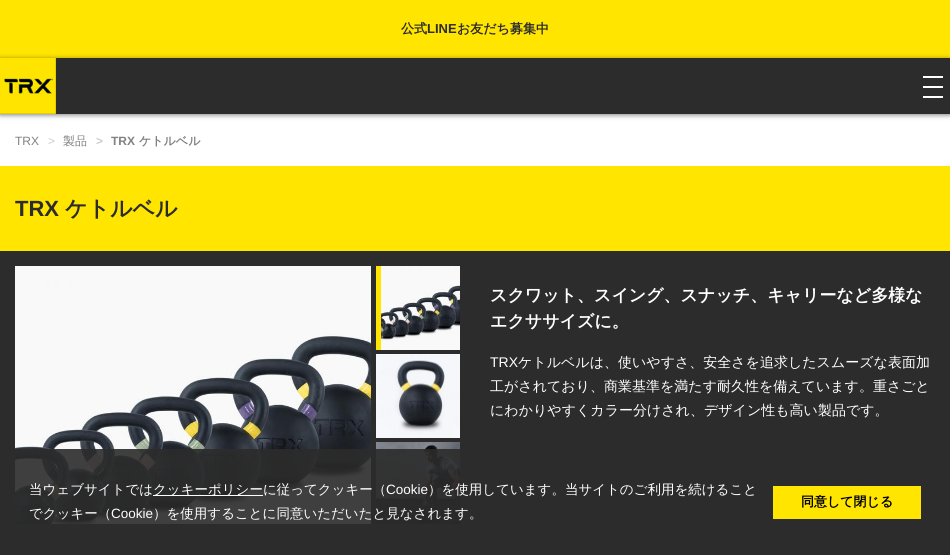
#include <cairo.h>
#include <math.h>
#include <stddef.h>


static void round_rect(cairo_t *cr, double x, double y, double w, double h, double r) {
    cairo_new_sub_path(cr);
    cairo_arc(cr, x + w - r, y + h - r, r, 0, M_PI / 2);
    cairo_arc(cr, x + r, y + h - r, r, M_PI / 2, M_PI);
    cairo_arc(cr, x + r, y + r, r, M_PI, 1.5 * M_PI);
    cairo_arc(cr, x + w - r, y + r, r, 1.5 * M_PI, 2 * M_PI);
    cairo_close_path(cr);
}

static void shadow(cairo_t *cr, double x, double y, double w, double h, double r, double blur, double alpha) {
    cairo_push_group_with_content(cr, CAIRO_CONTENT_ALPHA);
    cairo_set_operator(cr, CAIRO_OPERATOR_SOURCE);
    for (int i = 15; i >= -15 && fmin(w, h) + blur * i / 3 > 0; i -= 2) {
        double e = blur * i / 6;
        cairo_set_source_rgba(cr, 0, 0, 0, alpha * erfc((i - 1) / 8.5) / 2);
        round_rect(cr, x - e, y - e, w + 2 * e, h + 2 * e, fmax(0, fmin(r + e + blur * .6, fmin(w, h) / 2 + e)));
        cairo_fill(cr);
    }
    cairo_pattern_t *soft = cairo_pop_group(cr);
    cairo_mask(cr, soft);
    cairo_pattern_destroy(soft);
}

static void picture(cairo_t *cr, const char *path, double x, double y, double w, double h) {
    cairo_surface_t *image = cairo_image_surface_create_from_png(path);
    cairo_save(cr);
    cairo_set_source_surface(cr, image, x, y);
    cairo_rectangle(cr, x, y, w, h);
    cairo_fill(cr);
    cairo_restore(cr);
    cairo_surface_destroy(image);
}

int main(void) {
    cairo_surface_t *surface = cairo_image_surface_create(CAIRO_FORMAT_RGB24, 950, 555);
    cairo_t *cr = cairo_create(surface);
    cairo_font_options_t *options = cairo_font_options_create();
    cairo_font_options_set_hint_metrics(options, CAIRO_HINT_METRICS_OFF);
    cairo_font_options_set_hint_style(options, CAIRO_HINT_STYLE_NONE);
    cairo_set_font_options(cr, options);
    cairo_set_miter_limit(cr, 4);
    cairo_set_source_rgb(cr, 1, 1, 1);
    cairo_paint(cr);
    cairo_set_source_rgb(cr, 1, 0.898, 0);
    cairo_rectangle(cr, 0, 0, 950, 58);
    cairo_fill(cr);
    cairo_select_font_face(cr, "WenQuanYi Zen Hei", CAIRO_FONT_SLANT_NORMAL, CAIRO_FONT_WEIGHT_BOLD);
    cairo_set_font_size(cr, 13);
    cairo_set_source_rgb(cr, 0.173, 0.173, 0.173);
    cairo_move_to(cr, 401, 33);
    cairo_show_text(cr, "公式");
    cairo_select_font_face(cr, "Liberation Sans", CAIRO_FONT_SLANT_NORMAL, CAIRO_FONT_WEIGHT_BOLD);
    cairo_move_to(cr, 427, 33);
    cairo_show_text(cr, "LINE");
    cairo_select_font_face(cr, "WenQuanYi Zen Hei", CAIRO_FONT_SLANT_NORMAL, CAIRO_FONT_WEIGHT_BOLD);
    cairo_move_to(cr, 457, 33);
    cairo_show_text(cr, "お友だち募集中");
    cairo_set_source_rgb(cr, 0, 0, 0);
    shadow(cr, 0, 59, 950, 56, 0, 2.5, 0.5);
    cairo_set_source_rgb(cr, 0.173, 0.173, 0.173);
    cairo_rectangle(cr, 0, 58, 950, 56);
    cairo_fill(cr);
    picture(cr, "img1.png", 0, 58, 56, 56);
    cairo_set_source_rgb(cr, 1, 1, 1);
    cairo_rectangle(cr, 923, 86, 20, 2);
    cairo_fill(cr);
    cairo_rectangle(cr, 923, 76, 20, 2);
    cairo_fill(cr);
    cairo_rectangle(cr, 923, 96, 20, 2);
    cairo_fill(cr);
    cairo_select_font_face(cr, "Liberation Sans", CAIRO_FONT_SLANT_NORMAL, CAIRO_FONT_WEIGHT_NORMAL);
    cairo_set_font_size(cr, 12);
    cairo_set_source_rgb(cr, 0.506, 0.506, 0.506);
    cairo_move_to(cr, 15, 145);
    cairo_show_text(cr, "TRX");
    cairo_set_source_rgb(cr, 0.8, 0.8, 0.8);
    cairo_move_to(cr, 48, 145);
    cairo_show_text(cr, ">");
    cairo_select_font_face(cr, "WenQuanYi Zen Hei Medium", CAIRO_FONT_SLANT_NORMAL, CAIRO_FONT_WEIGHT_NORMAL);
    cairo_set_source_rgb(cr, 0.506, 0.506, 0.506);
    cairo_move_to(cr, 63, 145);
    cairo_show_text(cr, "製品");
    cairo_select_font_face(cr, "Liberation Sans", CAIRO_FONT_SLANT_NORMAL, CAIRO_FONT_WEIGHT_BOLD);
    cairo_set_source_rgb(cr, 0.8, 0.8, 0.8);
    cairo_move_to(cr, 96, 145);
    cairo_show_text(cr, ">");
    cairo_set_source_rgb(cr, 0.506, 0.506, 0.506);
    cairo_move_to(cr, 111, 145);
    cairo_show_text(cr, "TRX");
    cairo_select_font_face(cr, "WenQuanYi Zen Hei", CAIRO_FONT_SLANT_NORMAL, CAIRO_FONT_WEIGHT_BOLD);
    cairo_move_to(cr, 139, 145);
    cairo_show_text(cr, "ケトルベル");
    cairo_set_source_rgb(cr, 1, 0.898, 0);
    cairo_rectangle(cr, 0, 166, 950, 85);
    cairo_fill(cr);
    cairo_select_font_face(cr, "Liberation Sans", CAIRO_FONT_SLANT_NORMAL, CAIRO_FONT_WEIGHT_BOLD);
    cairo_set_font_size(cr, 22);
    cairo_set_source_rgb(cr, 0.173, 0.173, 0.173);
    cairo_move_to(cr, 15, 216);
    cairo_show_text(cr, "TRX");
    cairo_select_font_face(cr, "WenQuanYi Zen Hei", CAIRO_FONT_SLANT_NORMAL, CAIRO_FONT_WEIGHT_BOLD);
    cairo_move_to(cr, 65, 216);
    cairo_show_text(cr, "ケトルベル");
    cairo_rectangle(cr, 0, 251, 950, 304);
    cairo_fill(cr);
    picture(cr, "img2.png", 15, 266, 356, 258);
    cairo_set_source_rgb(cr, 1, 0.898, 0);
    cairo_rectangle(cr, 376, 266, 5, 84);
    cairo_fill(cr);
    picture(cr, "img3.png", 381, 266, 79, 84);
    picture(cr, "img4.png", 376, 354, 84, 84);
    picture(cr, "img5.png", 376, 442, 84, 82);
    cairo_set_font_size(cr, 17);
    cairo_set_source_rgb(cr, 1, 1, 1);
    cairo_move_to(cr, 490, 301);
    cairo_show_text(cr, "スクワット、スイング、スナッチ、キャリーなど多様な");
    cairo_move_to(cr, 490, 327);
    cairo_show_text(cr, "エクササイズに。");
    cairo_select_font_face(cr, "Liberation Sans", CAIRO_FONT_SLANT_NORMAL, CAIRO_FONT_WEIGHT_NORMAL);
    cairo_set_font_size(cr, 14);
    cairo_move_to(cr, 490, 367);
    cairo_show_text(cr, "TRX");
    cairo_select_font_face(cr, "WenQuanYi Zen Hei Medium", CAIRO_FONT_SLANT_NORMAL, CAIRO_FONT_WEIGHT_NORMAL);
    cairo_move_to(cr, 518, 367);
    cairo_show_text(cr, "ケトルベルは、使いやすさ、安全さを追求したスムーズな表面加");
    cairo_move_to(cr, 490, 391);
    cairo_show_text(cr, "工がされており、商業基準を満たす耐久性を備えています。重さごと");
    cairo_move_to(cr, 490, 415);
    cairo_show_text(cr, "にわかりやすくカラー分けされ、デザイン性も高い製品です。");
    cairo_set_source_rgba(cr, 0.173, 0.173, 0.173, 0.9);
    cairo_rectangle(cr, 15, 449, 445, 75);
    cairo_fill(cr);
    cairo_set_font_size(cr, 13.5);
    cairo_set_source_rgb(cr, 1, 1, 1);
    cairo_move_to(cr, 29, 494);
    cairo_show_text(cr, "当ウェブサイトでは");
    cairo_rectangle(cr, 153, 495, 110, 1);
    cairo_fill(cr);
    cairo_move_to(cr, 153, 494);
    cairo_show_text(cr, "クッキーポリシーに従ってクッキー（");
    cairo_select_font_face(cr, "Liberation Sans", CAIRO_FONT_SLANT_NORMAL, CAIRO_FONT_WEIGHT_NORMAL);
    cairo_move_to(cr, 386, 494);
    cairo_show_text(cr, "Cookie");
    cairo_select_font_face(cr, "WenQuanYi Zen Hei Medium", CAIRO_FONT_SLANT_NORMAL, CAIRO_FONT_WEIGHT_NORMAL);
    cairo_move_to(cr, 428, 494);
    cairo_show_text(cr, "）を使用しています。当サイトのご利用を続けること");
    cairo_move_to(cr, 29, 518);
    cairo_show_text(cr, "でクッキー（");
    cairo_select_font_face(cr, "Liberation Sans", CAIRO_FONT_SLANT_NORMAL, CAIRO_FONT_WEIGHT_NORMAL);
    cairo_move_to(cr, 111, 518);
    cairo_show_text(cr, "Cookie");
    cairo_select_font_face(cr, "WenQuanYi Zen Hei Medium", CAIRO_FONT_SLANT_NORMAL, CAIRO_FONT_WEIGHT_NORMAL);
    cairo_move_to(cr, 153, 518);
    cairo_show_text(cr, "）を使用することに同意いただいたと見なされます。");
    cairo_set_source_rgb(cr, 1, 0.898, 0);
    cairo_rectangle(cr, 773, 486, 148, 33);
    cairo_fill(cr);
    cairo_select_font_face(cr, "WenQuanYi Zen Hei", CAIRO_FONT_SLANT_NORMAL, CAIRO_FONT_WEIGHT_BOLD);
    cairo_set_font_size(cr, 13);
    cairo_set_source_rgb(cr, 0, 0, 0);
    cairo_move_to(cr, 801, 506);
    cairo_show_text(cr, "同意して閉じる");
    cairo_surface_write_to_png(surface, "page.png");
    cairo_font_options_destroy(options);
    cairo_destroy(cr);
    cairo_surface_destroy(surface);
    return 0;
}
